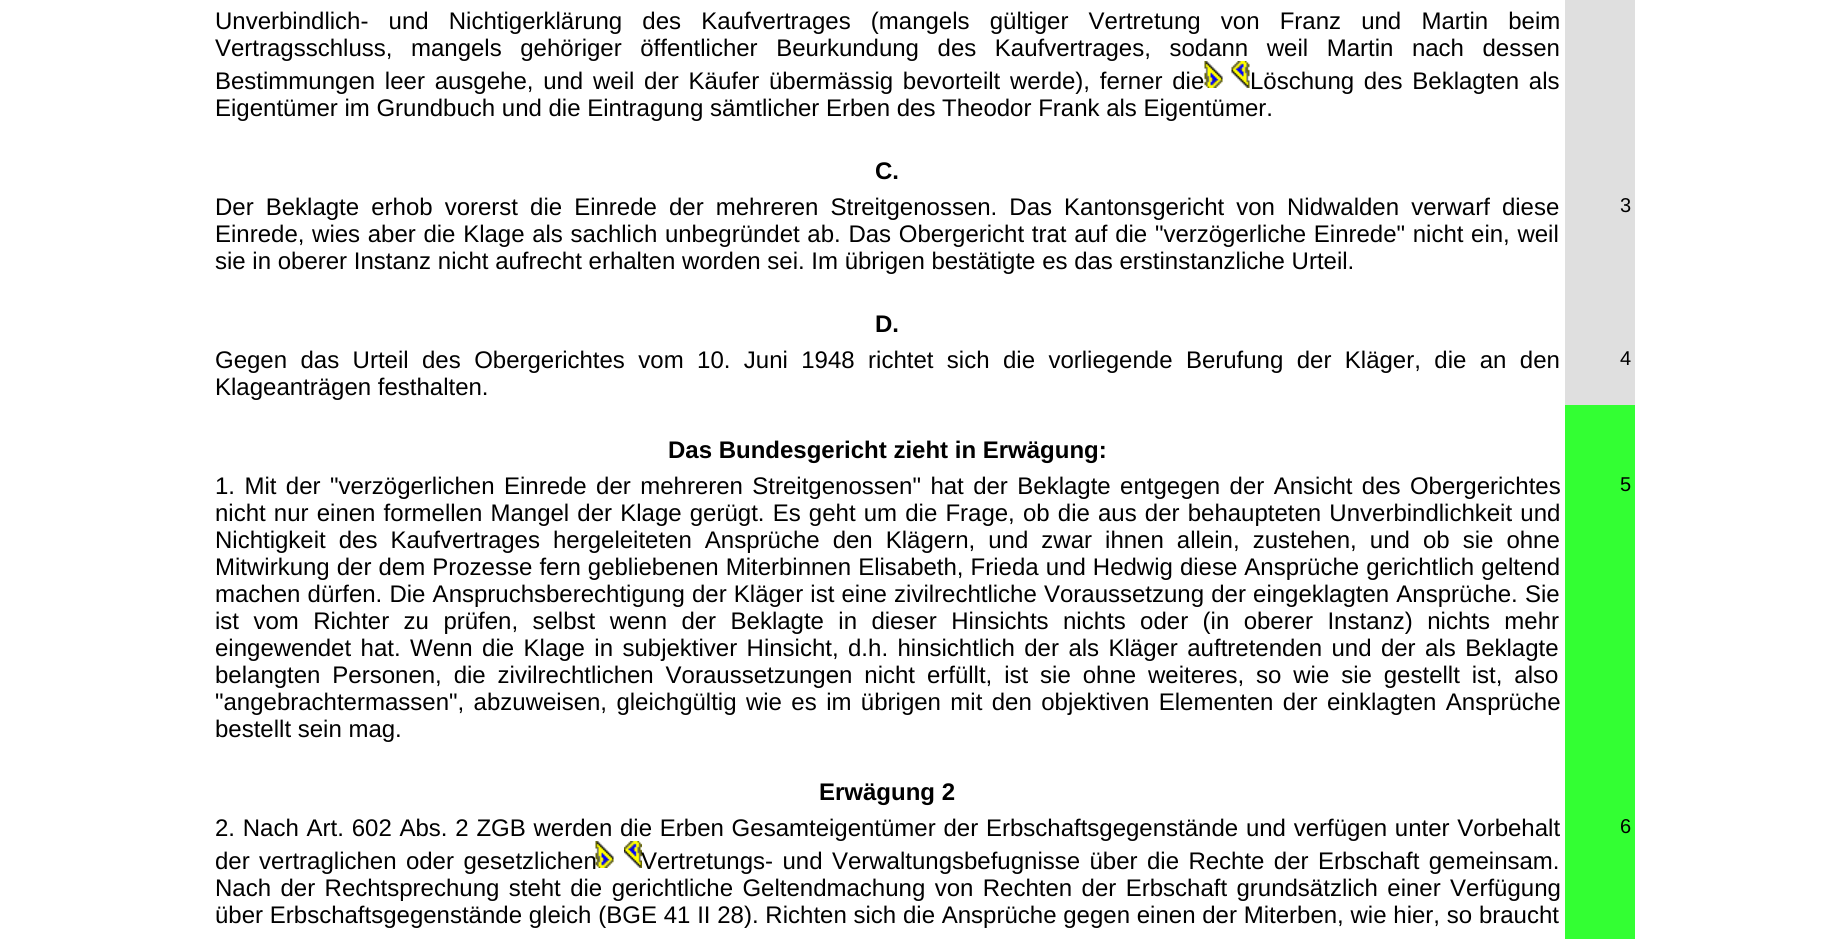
#include <cairo.h>
#include <math.h>
#include <stddef.h>


static void spaced_text(cairo_t *cr, double x, double y, const char *s, double letter, double word) {
    cairo_move_to(cr, x, y);
    while (*s) {
        char ch[5] = {0};
        int n = 0;
        do ch[n++] = *s++; while ((*s & 0xC0) == 0x80);
        cairo_show_text(cr, ch);
        cairo_rel_move_to(cr, letter + word * (*ch == ' '), 0);
    }
}

static void picture(cairo_t *cr, const char *path, double x, double y, double w, double h) {
    cairo_surface_t *image = cairo_image_surface_create_from_png(path);
    cairo_save(cr);
    cairo_set_source_surface(cr, image, x, y);
    cairo_rectangle(cr, x, y, w, h);
    cairo_fill(cr);
    cairo_restore(cr);
    cairo_surface_destroy(image);
}

int main(void) {
    cairo_surface_t *surface = cairo_image_surface_create(CAIRO_FORMAT_RGB24, 1845, 939);
    cairo_t *cr = cairo_create(surface);
    cairo_font_options_t *options = cairo_font_options_create();
    cairo_font_options_set_hint_metrics(options, CAIRO_HINT_METRICS_OFF);
    cairo_font_options_set_hint_style(options, CAIRO_HINT_STYLE_NONE);
    cairo_set_font_options(cr, options);
    cairo_set_miter_limit(cr, 4);
    cairo_set_source_rgb(cr, 1, 1, 1);
    cairo_paint(cr);
    cairo_select_font_face(cr, "Liberation Sans", CAIRO_FONT_SLANT_NORMAL, CAIRO_FONT_WEIGHT_NORMAL);
    cairo_set_font_size(cr, 24);
    cairo_set_source_rgb(cr, 0, 0, 0);
    spaced_text(cr, 215, 29, "Unverbindlich- und Nichtigerklärung des Kaufvertrages (mangels gültiger Vertretung von Franz und Martin beim", 0, 13.5);
    spaced_text(cr, 215, 56, "Vertragsschluss, mangels gehöriger öffentlicher Beurkundung des Kaufvertrages, sodann weil Martin nach dessen", 0, 11.9);
    spaced_text(cr, 215, 89, "Bestimmungen leer ausgehe, und weil der Käufer übermässig bevorteilt werde), ferner die", 0, 3.1);
    picture(cr, "img1.png", 1204, 61, 19, 27);
    picture(cr, "img2.png", 1231, 61, 19, 27);
    spaced_text(cr, 1250, 89, "Löschung des Beklagten als", 0, 3.1);
    cairo_move_to(cr, 215, 116);
    cairo_show_text(cr, "Eigentümer im Grundbuch und die Eintragung sämtlicher Erben des Theodor Frank als Eigentümer.");
    cairo_set_source_rgb(cr, 0.875, 0.875, 0.875);
    cairo_rectangle(cr, 1565, 0, 70, 405);
    cairo_fill(cr);
    cairo_select_font_face(cr, "Liberation Sans", CAIRO_FONT_SLANT_NORMAL, CAIRO_FONT_WEIGHT_BOLD);
    cairo_set_source_rgb(cr, 0, 0, 0);
    cairo_move_to(cr, 875, 179);
    cairo_show_text(cr, "C.");
    cairo_select_font_face(cr, "Liberation Sans", CAIRO_FONT_SLANT_NORMAL, CAIRO_FONT_WEIGHT_NORMAL);
    spaced_text(cr, 215, 215, "Der Beklagte erhob vorerst die Einrede der mehreren Streitgenossen. Das Kantonsgericht von Nidwalden verwarf diese", 0, 5.4);
    spaced_text(cr, 215, 242, "Einrede, wies aber die Klage als sachlich unbegründet ab. Das Obergericht trat auf die \"verzögerliche Einrede\" nicht ein, weil", 0, 1);
    cairo_move_to(cr, 215, 269);
    cairo_show_text(cr, "sie in oberer Instanz nicht aufrecht erhalten worden sei. Im übrigen bestätigte es das erstinstanzliche Urteil.");
    cairo_set_font_size(cr, 20);
    cairo_move_to(cr, 1620, 212);
    cairo_show_text(cr, "3");
    cairo_select_font_face(cr, "Liberation Sans", CAIRO_FONT_SLANT_NORMAL, CAIRO_FONT_WEIGHT_BOLD);
    cairo_set_font_size(cr, 24);
    cairo_move_to(cr, 875, 332);
    cairo_show_text(cr, "D.");
    cairo_select_font_face(cr, "Liberation Sans", CAIRO_FONT_SLANT_NORMAL, CAIRO_FONT_WEIGHT_NORMAL);
    spaced_text(cr, 215, 368, "Gegen das Urteil des Obergerichtes vom 10. Juni 1948 richtet sich die vorliegende Berufung der Kläger, die an den", 0, 6.75);
    cairo_move_to(cr, 215, 395);
    cairo_show_text(cr, "Klageanträgen festhalten.");
    cairo_set_font_size(cr, 20);
    cairo_move_to(cr, 1620, 365);
    cairo_show_text(cr, "4");
    cairo_select_font_face(cr, "Liberation Sans", CAIRO_FONT_SLANT_NORMAL, CAIRO_FONT_WEIGHT_BOLD);
    cairo_set_font_size(cr, 24);
    cairo_move_to(cr, 668, 458);
    cairo_show_text(cr, "Das Bundesgericht zieht in Erwägung:");
    cairo_set_source_rgb(cr, 0.2, 1, 0.2);
    cairo_rectangle(cr, 1565, 405, 70, 534);
    cairo_fill(cr);
    cairo_select_font_face(cr, "Liberation Sans", CAIRO_FONT_SLANT_NORMAL, CAIRO_FONT_WEIGHT_NORMAL);
    cairo_set_source_rgb(cr, 0, 0, 0);
    spaced_text(cr, 215, 494, "1. Mit der \"verzögerlichen Einrede der mehreren Streitgenossen\" hat der Beklagte entgegen der Ansicht des Obergerichtes", 0, 2.75);
    spaced_text(cr, 215, 521, "nicht nur einen formellen Mangel der Klage gerügt. Es geht um die Frage, ob die aus der behaupteten Unverbindlichkeit und", 0, 1.5);
    spaced_text(cr, 215, 548, "Nichtigkeit des Kaufvertrages hergeleiteten Ansprüche den Klägern, und zwar ihnen allein, zustehen, und ob sie ohne", 0, 6.4);
    spaced_text(cr, 215, 575, "Mitwirkung der dem Prozesse fern gebliebenen Miterbinnen Elisabeth, Frieda und Hedwig diese Ansprüche gerichtlich geltend", 0, 0.4);
    spaced_text(cr, 215, 602, "machen dürfen. Die Anspruchsberechtigung der Kläger ist eine zivilrechtliche Voraussetzung der eingeklagten Ansprüche. Sie", 0, 0.5);
    spaced_text(cr, 215, 629, "ist vom Richter zu prüfen, selbst wenn der Beklagte in dieser Hinsichts nichts oder (in oberer Instanz) nichts mehr", 0, 7.75);
    spaced_text(cr, 215, 656, "eingewendet hat. Wenn die Klage in subjektiver Hinsicht, d.h. hinsichtlich der als Kläger auftretenden und der als Beklagte", 0, 2.75);
    spaced_text(cr, 215, 683, "belangten Personen, die zivilrechtlichen Voraussetzungen nicht erfüllt, ist sie ohne weiteres, so wie sie gestellt ist, also", 0, 5.25);
    spaced_text(cr, 215, 710, "\"angebrachtermassen\", abzuweisen, gleichgültig wie es im übrigen mit den objektiven Elementen der einklagten Ansprüche", 0, 2.75);
    cairo_move_to(cr, 215, 737);
    cairo_show_text(cr, "bestellt sein mag.");
    cairo_set_font_size(cr, 20);
    cairo_move_to(cr, 1620, 491);
    cairo_show_text(cr, "5");
    cairo_select_font_face(cr, "Liberation Sans", CAIRO_FONT_SLANT_NORMAL, CAIRO_FONT_WEIGHT_BOLD);
    cairo_set_font_size(cr, 24);
    cairo_move_to(cr, 819, 800);
    cairo_show_text(cr, "Erwägung 2");
    cairo_select_font_face(cr, "Liberation Sans", CAIRO_FONT_SLANT_NORMAL, CAIRO_FONT_WEIGHT_NORMAL);
    spaced_text(cr, 215, 836, "2. Nach Art. 602 Abs. 2 ZGB werden die Erben Gesamteigentümer der Erbschaftsgegenstände und verfügen unter Vorbehalt", 0, 1.1);
    spaced_text(cr, 215, 869, "der vertraglichen oder gesetzlichen", 0, 2.75);
    picture(cr, "img1.png", 595, 841, 19, 27);
    picture(cr, "img3.png", 624, 841, 18, 27);
    spaced_text(cr, 641, 869, "Vertretungs- und Verwaltungsbefugnisse über die Rechte der Erbschaft gemeinsam.", 0, 2.75);
    spaced_text(cr, 215, 896, "Nach der Rechtsprechung steht die gerichtliche Geltendmachung von Rechten der Erbschaft grundsätzlich einer Verfügung", 0, 2.75);
    spaced_text(cr, 215, 923, "über Erbschaftsgegenstände gleich (BGE 41 II 28). Richten sich die Ansprüche gegen einen der Miterben, wie hier, so braucht", 0, 0.1);
    cairo_set_font_size(cr, 20);
    cairo_move_to(cr, 1620, 833);
    cairo_show_text(cr, "6");
    cairo_surface_write_to_png(surface, "page.png");
    cairo_font_options_destroy(options);
    cairo_destroy(cr);
    cairo_surface_destroy(surface);
    return 0;
}
